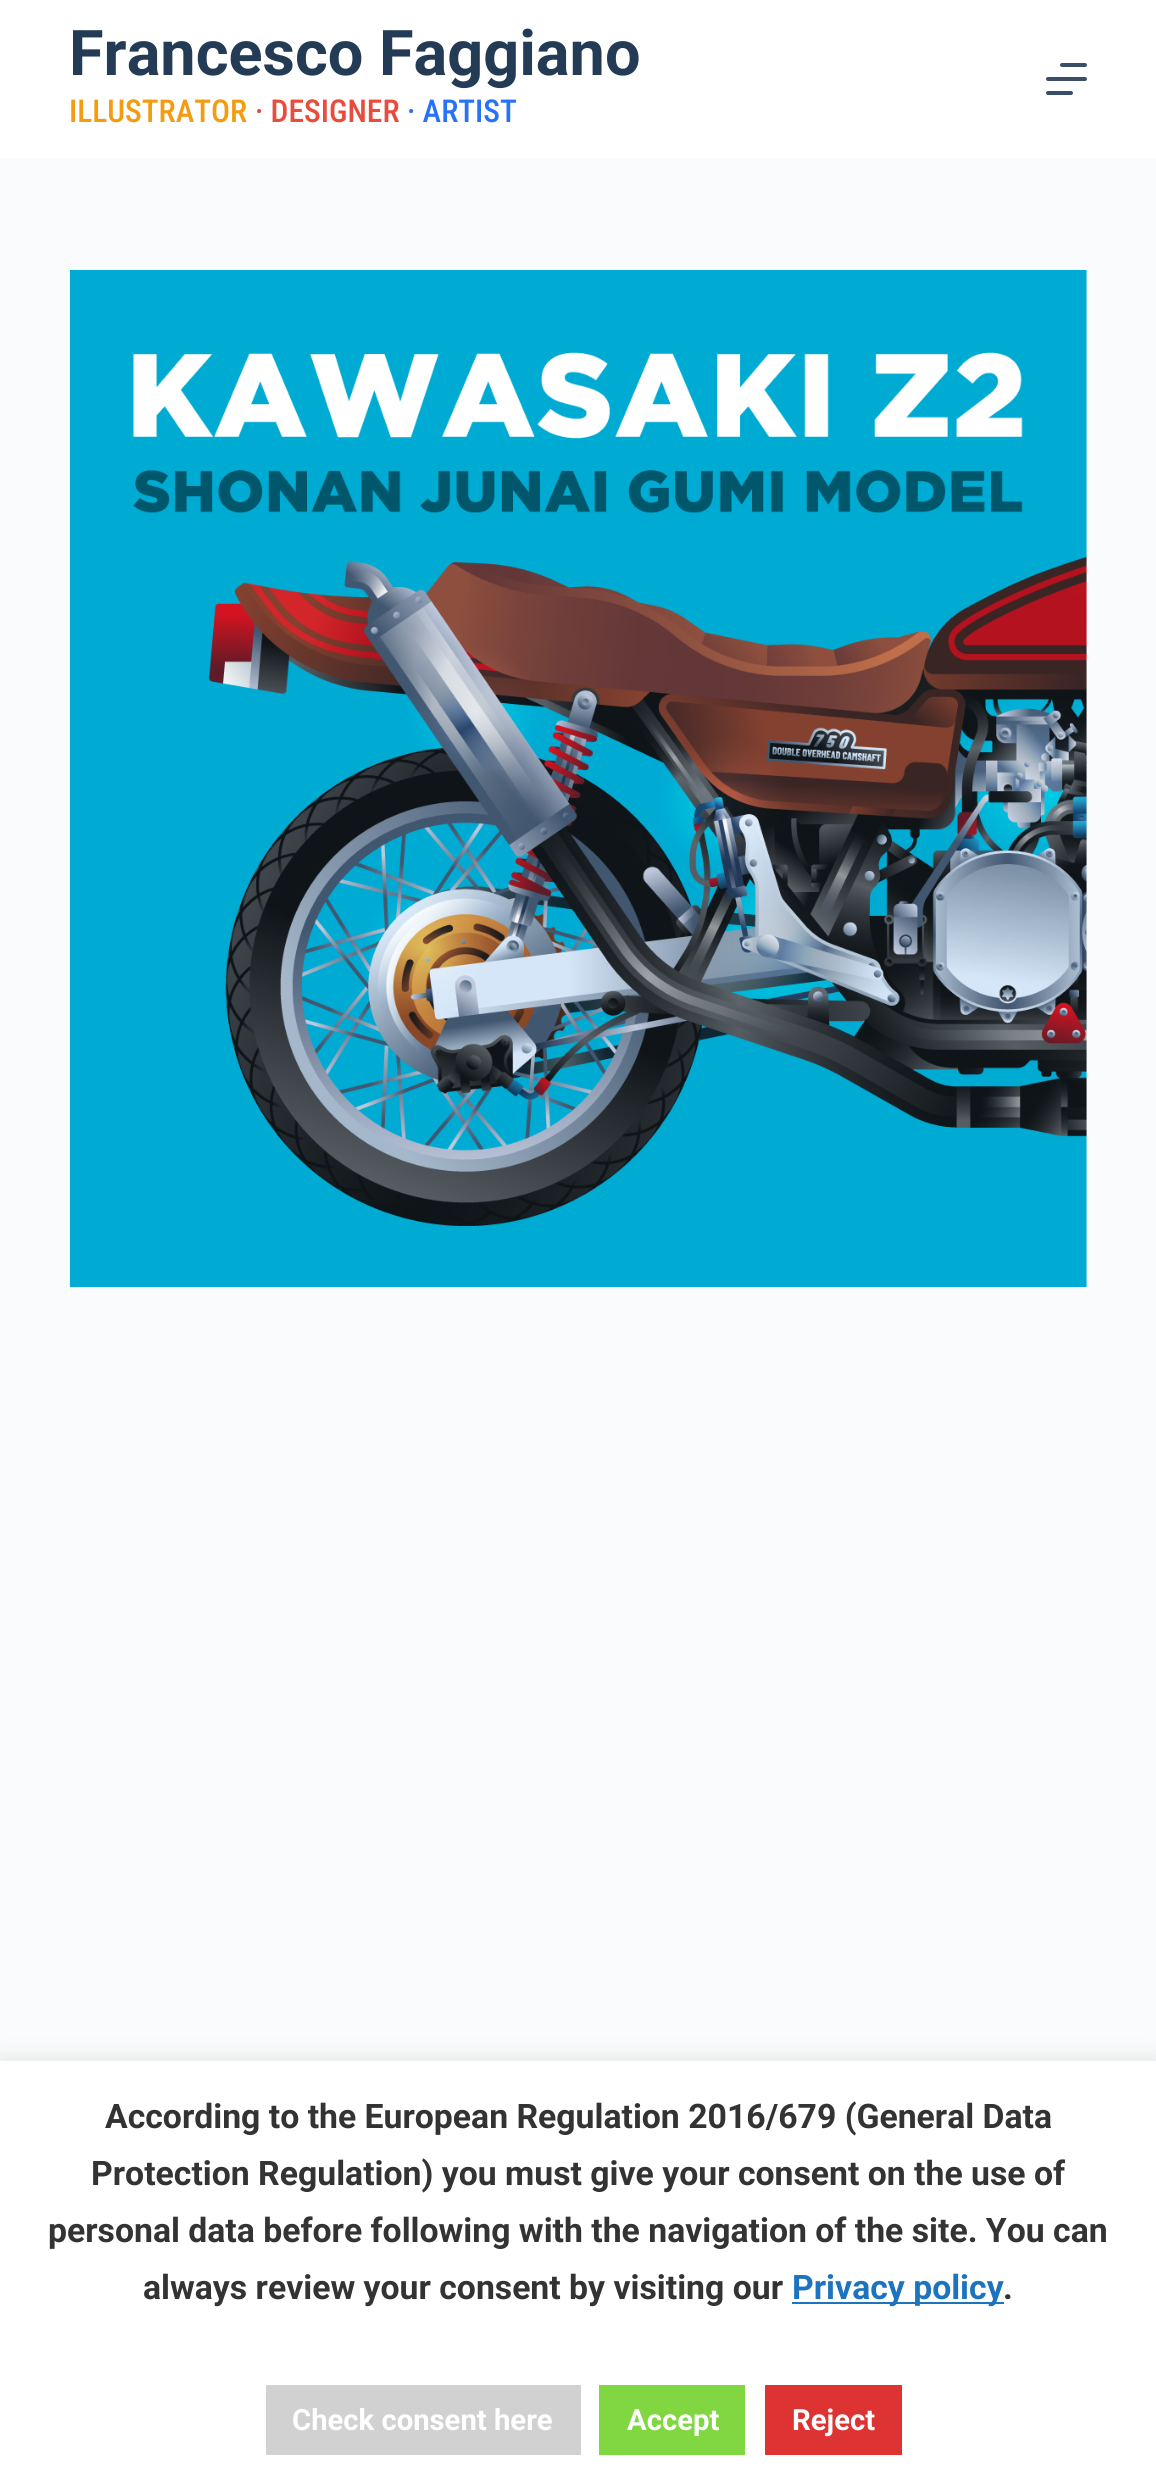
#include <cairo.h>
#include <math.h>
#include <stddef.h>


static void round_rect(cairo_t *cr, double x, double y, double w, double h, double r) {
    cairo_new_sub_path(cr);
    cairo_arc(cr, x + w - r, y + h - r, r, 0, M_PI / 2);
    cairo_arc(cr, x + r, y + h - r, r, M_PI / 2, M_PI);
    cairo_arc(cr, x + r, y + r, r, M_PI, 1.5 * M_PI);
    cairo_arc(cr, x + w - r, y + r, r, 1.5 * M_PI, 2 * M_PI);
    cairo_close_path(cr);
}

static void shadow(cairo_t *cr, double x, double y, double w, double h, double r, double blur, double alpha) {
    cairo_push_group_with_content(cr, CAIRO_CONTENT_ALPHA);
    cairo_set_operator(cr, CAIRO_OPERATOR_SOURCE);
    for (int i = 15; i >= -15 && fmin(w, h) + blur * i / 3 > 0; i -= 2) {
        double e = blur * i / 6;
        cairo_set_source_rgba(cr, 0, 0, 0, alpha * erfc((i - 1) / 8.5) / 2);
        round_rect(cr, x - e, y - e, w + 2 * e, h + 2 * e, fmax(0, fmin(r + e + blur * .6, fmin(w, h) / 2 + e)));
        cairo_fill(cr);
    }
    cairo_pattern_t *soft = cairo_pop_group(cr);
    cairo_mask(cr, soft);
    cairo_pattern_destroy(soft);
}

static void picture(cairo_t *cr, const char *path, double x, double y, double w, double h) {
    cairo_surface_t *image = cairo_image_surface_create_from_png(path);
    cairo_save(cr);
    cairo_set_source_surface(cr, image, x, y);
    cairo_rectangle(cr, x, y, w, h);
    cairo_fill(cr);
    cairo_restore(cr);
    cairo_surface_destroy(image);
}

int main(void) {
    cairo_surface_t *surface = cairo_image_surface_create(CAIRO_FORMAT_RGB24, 1156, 2481);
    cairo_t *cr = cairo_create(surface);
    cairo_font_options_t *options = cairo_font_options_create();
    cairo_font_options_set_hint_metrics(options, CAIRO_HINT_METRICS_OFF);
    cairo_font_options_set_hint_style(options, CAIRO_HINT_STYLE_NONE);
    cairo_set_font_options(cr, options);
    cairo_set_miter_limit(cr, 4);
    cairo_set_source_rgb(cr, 0.98, 0.984, 0.988);
    cairo_paint(cr);
    cairo_set_source_rgb(cr, 1, 1, 1);
    cairo_rectangle(cr, 0, 0, 1156, 158);
    cairo_fill(cr);
    cairo_select_font_face(cr, "Roboto", CAIRO_FONT_SLANT_NORMAL, CAIRO_FONT_WEIGHT_BOLD);
    cairo_set_font_size(cr, 63);
    cairo_set_source_rgb(cr, 0.141, 0.231, 0.337);
    cairo_move_to(cr, 69, 75);
    cairo_show_text(cr, "Francesco Faggiano");
    cairo_select_font_face(cr, "Roboto Condensed Medium", CAIRO_FONT_SLANT_NORMAL, CAIRO_FONT_WEIGHT_NORMAL);
    cairo_set_font_size(cr, 31.5);
    cairo_set_source_rgb(cr, 0.953, 0.612, 0.071);
    cairo_move_to(cr, 69, 122);
    cairo_show_text(cr, "ILLUSTRATOR");
    cairo_set_source_rgb(cr, 0.906, 0.298, 0.235);
    cairo_move_to(cr, 255, 122);
    cairo_show_text(cr, "· DESIGNER");
    cairo_set_source_rgb(cr, 0.157, 0.447, 0.98);
    cairo_move_to(cr, 407, 122);
    cairo_show_text(cr, "· ARTIST");
    cairo_set_source_rgb(cr, 0.227, 0.31, 0.404);
    round_rect(cr, 1060, 63, 27, 4, 2);
    cairo_fill(cr);
    round_rect(cr, 1046, 77, 41, 4, 2);
    cairo_fill(cr);
    round_rect(cr, 1046, 91, 27, 4, 2);
    cairo_fill(cr);
    picture(cr, "img1.png", 69, 270, 1018, 1017);
    cairo_set_source_rgb(cr, 0.675, 0.671, 0.671);
    shadow(cr, 0, 2059, 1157, 421, 0, 11, 0.3);
    cairo_set_source_rgb(cr, 1, 1, 1);
    cairo_rectangle(cr, 0, 2061, 1156, 420);
    cairo_fill(cr);
    cairo_select_font_face(cr, "Roboto", CAIRO_FONT_SLANT_NORMAL, CAIRO_FONT_WEIGHT_BOLD);
    cairo_set_font_size(cr, 33.75);
    cairo_set_source_rgb(cr, 0.2, 0.2, 0.2);
    cairo_move_to(cr, 105, 2128);
    cairo_show_text(cr, "According to the European Regulation 2016/679 (General Data");
    cairo_move_to(cr, 91, 2185);
    cairo_show_text(cr, "Protection Regulation) you must give your consent on the use of");
    cairo_move_to(cr, 48, 2242);
    cairo_show_text(cr, "personal data before following with the navigation of the site. You can");
    cairo_move_to(cr, 143, 2299);
    cairo_show_text(cr, "always review your consent by visiting our");
    cairo_set_source_rgb(cr, 0.118, 0.451, 0.745);
    cairo_rectangle(cr, 792, 2302, 212, 2);
    cairo_fill(cr);
    cairo_move_to(cr, 792, 2299);
    cairo_show_text(cr, "Privacy policy");
    cairo_set_source_rgb(cr, 0.2, 0.2, 0.2);
    cairo_move_to(cr, 1003, 2299);
    cairo_show_text(cr, ".");
    cairo_set_source_rgb(cr, 0.82, 0.82, 0.82);
    cairo_rectangle(cr, 266, 2385, 315, 70);
    cairo_fill(cr);
    cairo_set_font_size(cr, 29.25);
    cairo_set_source_rgb(cr, 1, 1, 1);
    cairo_move_to(cr, 292, 2430);
    cairo_show_text(cr, "Check consent here");
    cairo_set_source_rgb(cr, 0.506, 0.843, 0.259);
    cairo_rectangle(cr, 599, 2385, 146, 70);
    cairo_fill(cr);
    cairo_set_source_rgb(cr, 1, 1, 1);
    cairo_move_to(cr, 627, 2430);
    cairo_show_text(cr, "Accept");
    cairo_set_source_rgb(cr, 0.867, 0.2, 0.2);
    cairo_rectangle(cr, 765, 2385, 137, 70);
    cairo_fill(cr);
    cairo_set_source_rgb(cr, 1, 1, 1);
    cairo_move_to(cr, 792, 2430);
    cairo_show_text(cr, "Reject");
    cairo_surface_write_to_png(surface, "page.png");
    cairo_font_options_destroy(options);
    cairo_destroy(cr);
    cairo_surface_destroy(surface);
    return 0;
}
